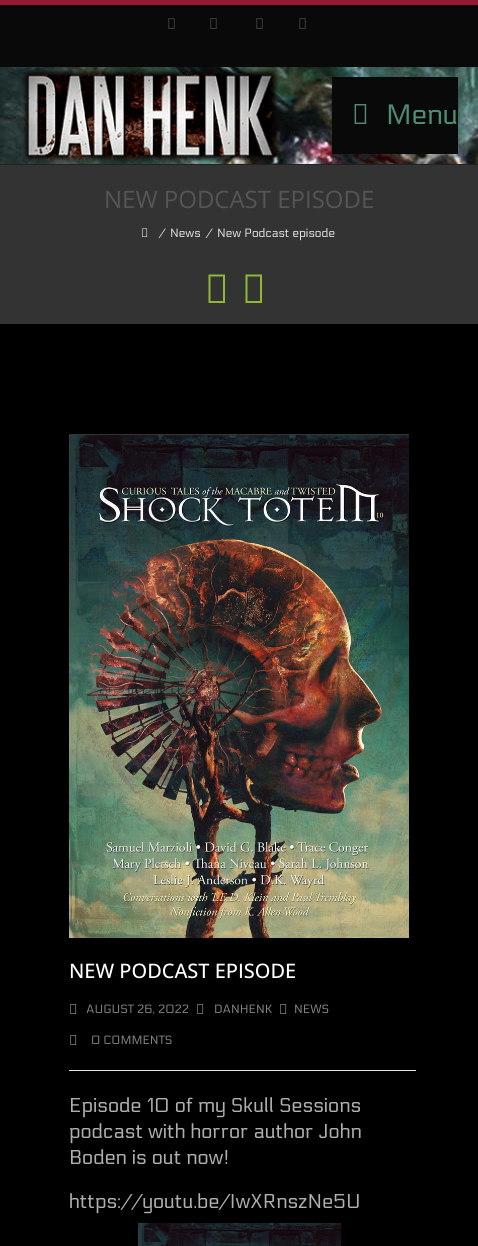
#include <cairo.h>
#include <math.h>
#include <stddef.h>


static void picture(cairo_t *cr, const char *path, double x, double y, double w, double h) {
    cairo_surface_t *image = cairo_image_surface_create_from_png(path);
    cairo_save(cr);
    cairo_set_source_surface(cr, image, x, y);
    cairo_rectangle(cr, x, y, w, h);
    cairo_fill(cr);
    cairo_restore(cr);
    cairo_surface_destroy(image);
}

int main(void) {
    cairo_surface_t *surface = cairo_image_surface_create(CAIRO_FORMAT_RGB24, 478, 1246);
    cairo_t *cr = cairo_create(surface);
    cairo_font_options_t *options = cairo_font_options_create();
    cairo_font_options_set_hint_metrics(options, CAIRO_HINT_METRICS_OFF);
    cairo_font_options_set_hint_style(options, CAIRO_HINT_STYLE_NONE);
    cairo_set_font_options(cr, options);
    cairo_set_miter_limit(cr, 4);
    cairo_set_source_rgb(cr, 0, 0, 0);
    cairo_paint(cr);
    cairo_set_source_rgb(cr, 0.588, 0.102, 0.204);
    cairo_rectangle(cr, 0, 0, 478, 5);
    cairo_fill(cr);
    cairo_set_source_rgb(cr, 0.039, 0.039, 0.039);
    cairo_rectangle(cr, 0, 5, 478, 62);
    cairo_fill(cr);
    picture(cr, "img1.png", 168, 18, 7, 11);
    picture(cr, "img1.png", 210, 18, 7, 11);
    picture(cr, "img1.png", 256, 18, 7, 11);
    picture(cr, "img1.png", 299, 18, 7, 11);
    picture(cr, "img2.png", 0, 67, 478, 97);
    cairo_set_source_rgb(cr, 0.133, 0.133, 0.133);
    cairo_rectangle(cr, 0, 164, 478, 1);
    cairo_fill(cr);
    picture(cr, "img3.png", 22, 69, 256, 94);
    cairo_set_source_rgb(cr, 0.039, 0.039, 0.039);
    cairo_rectangle(cr, 332, 77, 126, 77);
    cairo_fill(cr);
    picture(cr, "img4.png", 354, 104, 13, 20);
    cairo_select_font_face(cr, "Electrolize", CAIRO_FONT_SLANT_NORMAL, CAIRO_FONT_WEIGHT_NORMAL);
    cairo_set_font_size(cr, 28);
    cairo_set_source_rgb(cr, 0.314, 0.549, 0.447);
    cairo_move_to(cr, 386, 124);
    cairo_show_text(cr, "Menu");
    cairo_set_source_rgb(cr, 0.2, 0.2, 0.2);
    cairo_rectangle(cr, 0, 165, 478, 159);
    cairo_fill(cr);
    cairo_select_font_face(cr, "Open Sans", CAIRO_FONT_SLANT_NORMAL, CAIRO_FONT_WEIGHT_NORMAL);
    cairo_set_font_size(cr, 24);
    cairo_set_source_rgb(cr, 0.333, 0.333, 0.333);
    cairo_move_to(cr, 104, 208);
    cairo_show_text(cr, "NEW PODCAST EPISODE");
    picture(cr, "img5.png", 142, 228, 6, 9);
    cairo_select_font_face(cr, "Electrolize", CAIRO_FONT_SLANT_NORMAL, CAIRO_FONT_WEIGHT_NORMAL);
    cairo_set_font_size(cr, 12);
    cairo_set_source_rgb(cr, 0.878, 0.878, 0.878);
    cairo_move_to(cr, 159, 237);
    cairo_show_text(cr, "/");
    cairo_move_to(cr, 170, 237);
    cairo_show_text(cr, "News");
    cairo_move_to(cr, 206, 237);
    cairo_show_text(cr, "/");
    cairo_move_to(cr, 217, 237);
    cairo_show_text(cr, "New Podcast episode");
    cairo_set_source_rgb(cr, 0.561, 0.718, 0.22);
    cairo_new_path(cr);
    cairo_move_to(cr, 208.5, 303);
    cairo_line_to(cr, 208.5, 274.5);
    cairo_line_to(cr, 225, 274.5);
    cairo_line_to(cr, 225, 303);
    cairo_close_path(cr);
    cairo_move_to(cr, 210.5, 301);
    cairo_line_to(cr, 223, 301);
    cairo_line_to(cr, 223, 276.5);
    cairo_line_to(cr, 210.5, 276.5);
    cairo_close_path(cr);
    cairo_move_to(cr, 245.5, 303);
    cairo_line_to(cr, 245.5, 274.5);
    cairo_line_to(cr, 262, 274.5);
    cairo_line_to(cr, 262, 303);
    cairo_close_path(cr);
    cairo_move_to(cr, 247.5, 301);
    cairo_line_to(cr, 260, 301);
    cairo_line_to(cr, 260, 276.5);
    cairo_line_to(cr, 247.5, 276.5);
    cairo_close_path(cr);
    cairo_fill(cr);
    cairo_set_source_rgb(cr, 0.2, 0.2, 0.2);
    cairo_rectangle(cr, 69, 434, 340, 1);
    cairo_fill(cr);
    picture(cr, "img6.png", 69, 435, 340, 503);
    cairo_select_font_face(cr, "Open Sans Medium", CAIRO_FONT_SLANT_NORMAL, CAIRO_FONT_WEIGHT_NORMAL);
    cairo_set_font_size(cr, 20);
    cairo_set_source_rgb(cr, 1, 1, 1);
    cairo_move_to(cr, 69, 978);
    cairo_show_text(cr, "NEW PODCAST EPISODE");
    cairo_set_source_rgb(cr, 0.898, 0.898, 0.898);
    cairo_rectangle(cr, 69, 1070, 347, 1);
    cairo_fill(cr);
    picture(cr, "img7.png", 70, 1004, 7, 10);
    cairo_select_font_face(cr, "Electrolize", CAIRO_FONT_SLANT_NORMAL, CAIRO_FONT_WEIGHT_NORMAL);
    cairo_set_font_size(cr, 12);
    cairo_set_source_rgb(cr, 0.533, 0.533, 0.533);
    cairo_move_to(cr, 86, 1013);
    cairo_show_text(cr, "AUGUST 26, 2022");
    picture(cr, "img7.png", 197, 1004, 7, 10);
    cairo_move_to(cr, 214, 1013);
    cairo_show_text(cr, "DANHENK");
    picture(cr, "img7.png", 280, 1004, 7, 10);
    cairo_move_to(cr, 294, 1013);
    cairo_show_text(cr, "NEWS");
    picture(cr, "img7.png", 70, 1035, 7, 10);
    cairo_move_to(cr, 91, 1044);
    cairo_show_text(cr, "0 COMMENTS");
    cairo_set_font_size(cr, 20);
    cairo_set_source_rgb(cr, 0.686, 0.686, 0.686);
    cairo_move_to(cr, 69, 1112);
    cairo_show_text(cr, "Episode 10 of my Skull Sessions");
    cairo_move_to(cr, 69, 1138);
    cairo_show_text(cr, "podcast with horror author John");
    cairo_move_to(cr, 69, 1164);
    cairo_show_text(cr, "Boden is out now!");
    cairo_move_to(cr, 69, 1208);
    cairo_show_text(cr, "https://youtu.be/IwXRnszNe5U");
    picture(cr, "img8.png", 138, 1223, 203, 23);
    cairo_surface_write_to_png(surface, "page.png");
    cairo_font_options_destroy(options);
    cairo_destroy(cr);
    cairo_surface_destroy(surface);
    return 0;
}
